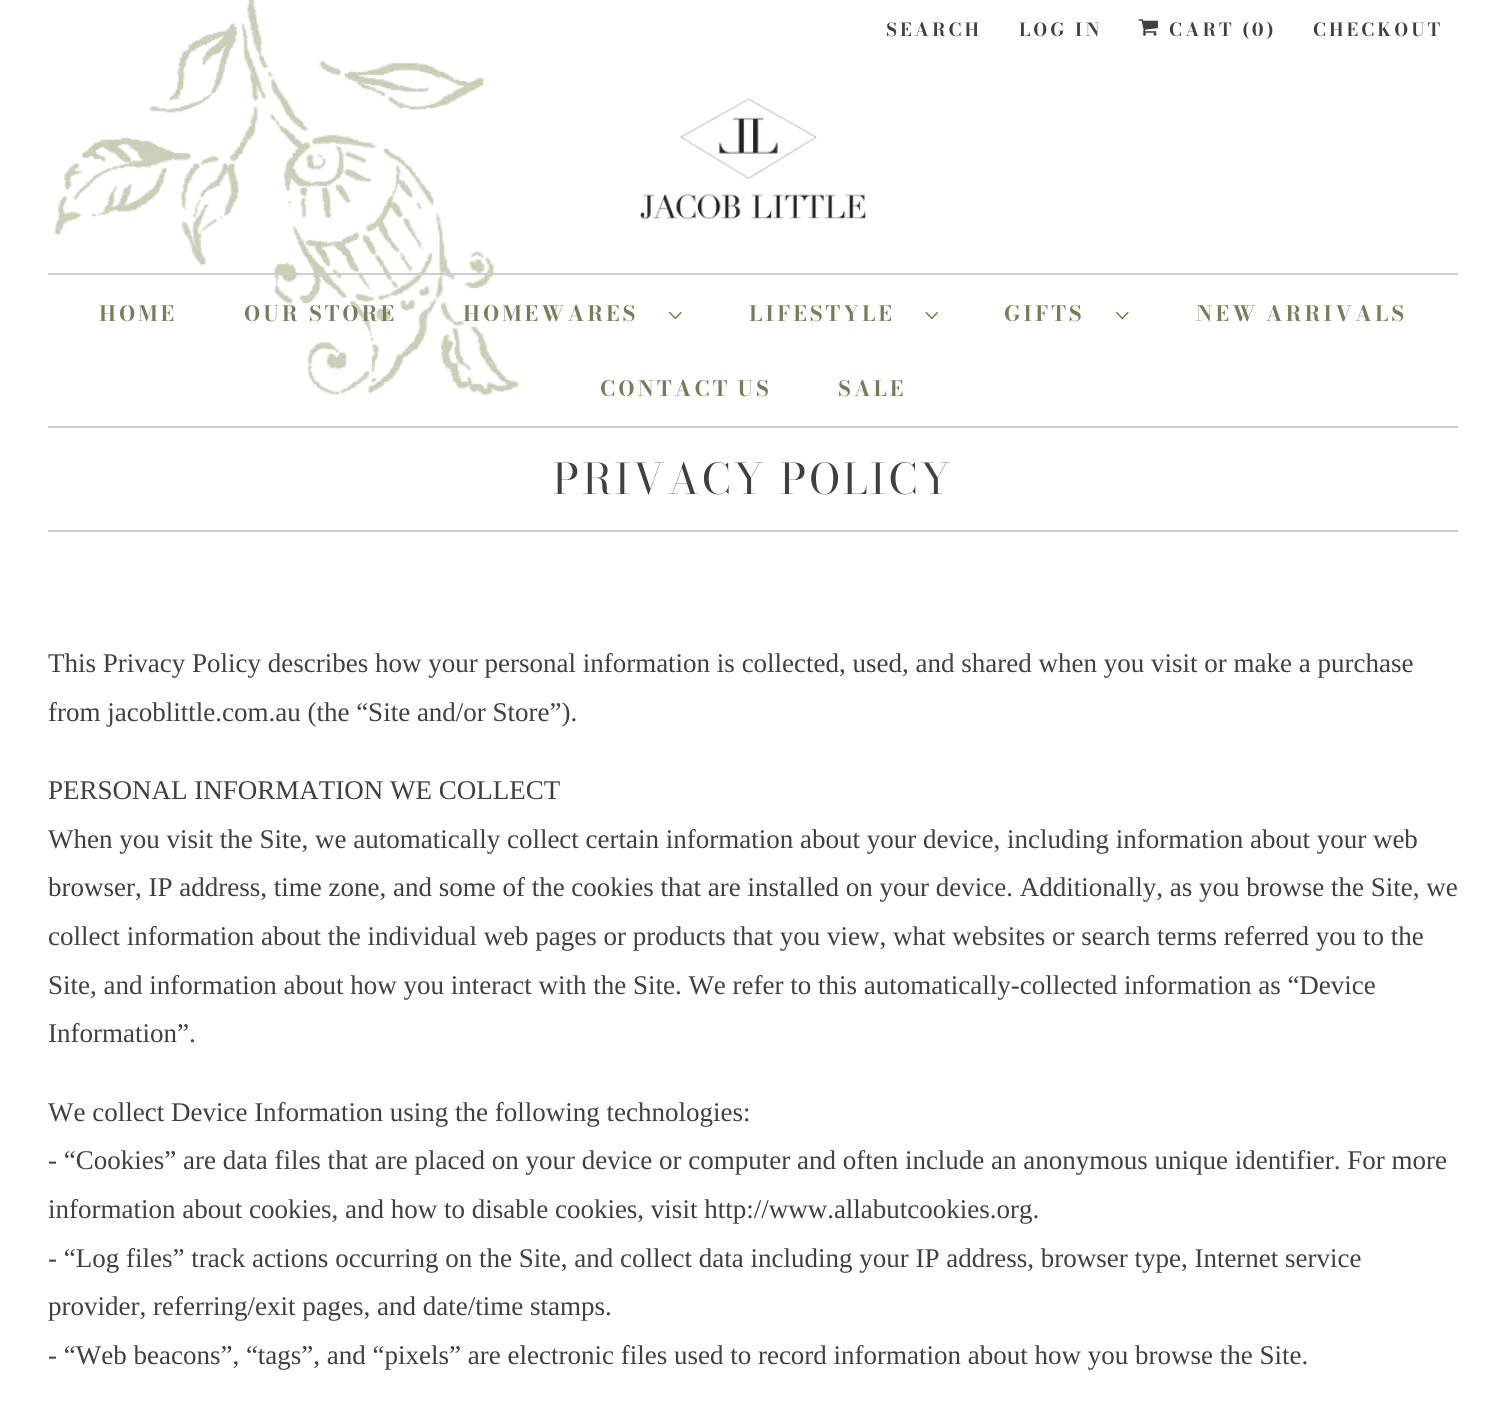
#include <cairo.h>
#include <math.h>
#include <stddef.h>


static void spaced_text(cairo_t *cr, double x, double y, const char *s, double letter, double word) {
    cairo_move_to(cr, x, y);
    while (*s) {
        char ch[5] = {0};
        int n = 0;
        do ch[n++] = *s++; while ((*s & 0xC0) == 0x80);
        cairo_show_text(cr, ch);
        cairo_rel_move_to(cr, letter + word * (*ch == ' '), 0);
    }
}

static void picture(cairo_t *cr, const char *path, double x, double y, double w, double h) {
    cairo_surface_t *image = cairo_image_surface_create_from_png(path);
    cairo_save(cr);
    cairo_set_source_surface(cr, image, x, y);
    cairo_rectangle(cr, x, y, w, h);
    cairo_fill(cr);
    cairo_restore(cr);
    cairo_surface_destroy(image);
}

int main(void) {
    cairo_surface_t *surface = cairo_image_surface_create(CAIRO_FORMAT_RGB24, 1506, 1426);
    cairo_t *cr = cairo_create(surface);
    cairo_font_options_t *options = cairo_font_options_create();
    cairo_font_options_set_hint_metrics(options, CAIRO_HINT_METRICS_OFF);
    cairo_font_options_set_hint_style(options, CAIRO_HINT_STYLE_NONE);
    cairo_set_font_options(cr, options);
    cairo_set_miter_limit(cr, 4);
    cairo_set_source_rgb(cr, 1, 1, 1);
    cairo_paint(cr);
    picture(cr, "img1.png", 54, 0, 466, 396);
    cairo_select_font_face(cr, "Bodoni Moda", CAIRO_FONT_SLANT_NORMAL, CAIRO_FONT_WEIGHT_BOLD);
    cairo_set_font_size(cr, 18);
    cairo_set_source_rgb(cr, 0.251, 0.251, 0.251);
    spaced_text(cr, 886, 36, "SEARCH", 3, 0);
    spaced_text(cr, 1019, 36, "LOG IN", 3, 0);
    picture(cr, "img2.png", 1138, 19, 20, 17);
    spaced_text(cr, 1169, 36, "CART (0)", 3, 0);
    spaced_text(cr, 1313, 36, "CHECKOUT", 3, 0);
    picture(cr, "img3.png", 640, 98, 226, 122);
    cairo_set_source_rgb(cr, 0.804, 0.804, 0.804);
    cairo_rectangle(cr, 48, 273, 1410, 2);
    cairo_fill(cr);
    cairo_rectangle(cr, 48, 426, 1410, 2);
    cairo_fill(cr);
    cairo_set_font_size(cr, 21);
    cairo_set_source_rgb(cr, 0.451, 0.494, 0.353);
    spaced_text(cr, 99, 321, "HOME", 3, 0);
    spaced_text(cr, 244, 321, "OUR STORE", 3, 0);
    spaced_text(cr, 463, 321, "HOMEWARES", 3, 0);
    picture(cr, "img4.png", 669, 311, 13, 9);
    spaced_text(cr, 749, 321, "LIFESTYLE", 3, 0);
    picture(cr, "img5.png", 925, 311, 14, 9);
    spaced_text(cr, 1004, 321, "GIFTS", 3, 0);
    picture(cr, "img4.png", 1116, 311, 13, 9);
    spaced_text(cr, 1196, 321, "NEW ARRIVALS", 3, -1);
    spaced_text(cr, 600, 396, "CONTACT US", 3, -1);
    spaced_text(cr, 838, 396, "SALE", 3, 0);
    cairo_set_source_rgb(cr, 0.804, 0.804, 0.804);
    cairo_rectangle(cr, 48, 530, 1410, 2);
    cairo_fill(cr);
    cairo_select_font_face(cr, "Bodoni Moda", CAIRO_FONT_SLANT_NORMAL, CAIRO_FONT_WEIGHT_NORMAL);
    cairo_set_font_size(cr, 42);
    cairo_set_source_rgb(cr, 0.251, 0.251, 0.251);
    spaced_text(cr, 553, 494, "PRIVACY POLICY", 3, 0);
    cairo_select_font_face(cr, "Liberation Serif", CAIRO_FONT_SLANT_NORMAL, CAIRO_FONT_WEIGHT_NORMAL);
    cairo_set_font_size(cr, 27);
    cairo_move_to(cr, 48, 672);
    cairo_show_text(cr, "This Privacy Policy describes how your personal information is collected, used, and shared when you visit or make a purchase");
    cairo_move_to(cr, 48, 721);
    cairo_show_text(cr, "from jacoblittle.com.au (the “Site and/or Store”).");
    cairo_move_to(cr, 48, 799);
    cairo_show_text(cr, "PERSONAL INFORMATION WE COLLECT");
    cairo_move_to(cr, 48, 848);
    cairo_show_text(cr, "When you visit the Site, we automatically collect certain information about your device, including information about your web");
    cairo_move_to(cr, 48, 896);
    cairo_show_text(cr, "browser, IP address, time zone, and some of the cookies that are installed on your device. Additionally, as you browse the Site, we");
    cairo_move_to(cr, 48, 945);
    cairo_show_text(cr, "collect information about the individual web pages or products that you view, what websites or search terms referred you to the");
    cairo_move_to(cr, 48, 994);
    cairo_show_text(cr, "Site, and information about how you interact with the Site. We refer to this automatically-collected information as “Device");
    cairo_move_to(cr, 48, 1042);
    cairo_show_text(cr, "Information”.");
    cairo_move_to(cr, 48, 1121);
    cairo_show_text(cr, "We collect Device Information using the following technologies:");
    cairo_move_to(cr, 48, 1169);
    cairo_show_text(cr, "- “Cookies” are data files that are placed on your device or computer and often include an anonymous unique identifier. For more");
    cairo_move_to(cr, 48, 1218);
    cairo_show_text(cr, "information about cookies, and how to disable cookies, visit http://www.allabutcookies.org.");
    cairo_move_to(cr, 48, 1267);
    cairo_show_text(cr, "- “Log files” track actions occurring on the Site, and collect data including your IP address, browser type, Internet service");
    cairo_move_to(cr, 48, 1315);
    cairo_show_text(cr, "provider, referring/exit pages, and date/time stamps.");
    cairo_move_to(cr, 48, 1364);
    cairo_show_text(cr, "- “Web beacons”, “tags”, and “pixels” are electronic files used to record information about how you browse the Site.");
    cairo_surface_write_to_png(surface, "page.png");
    cairo_font_options_destroy(options);
    cairo_destroy(cr);
    cairo_surface_destroy(surface);
    return 0;
}
